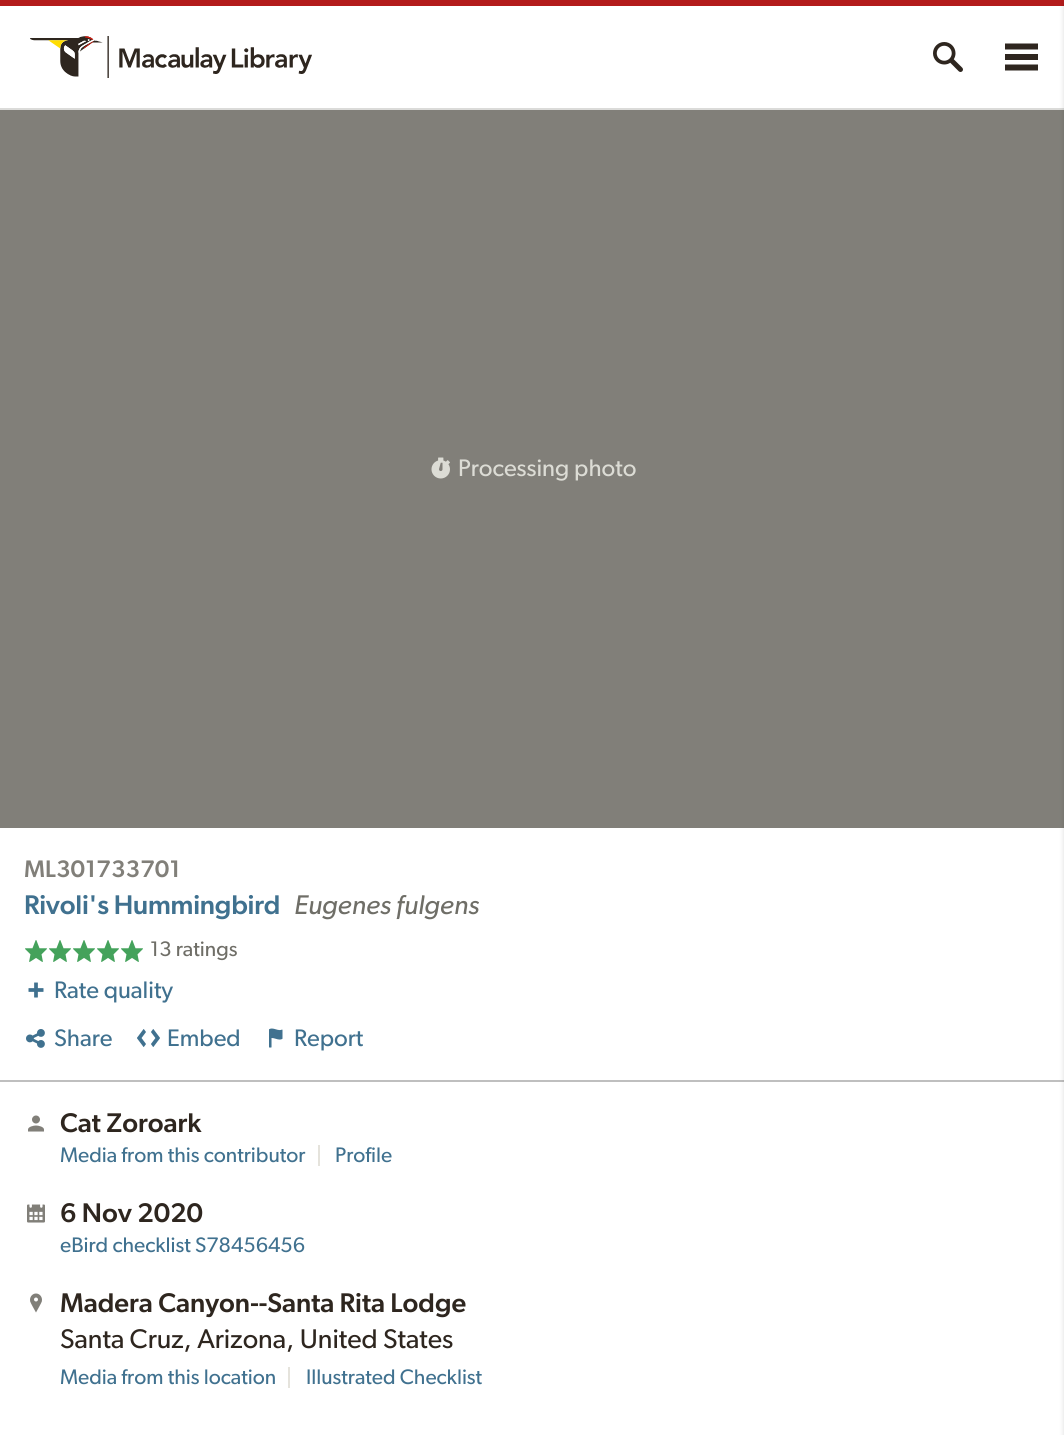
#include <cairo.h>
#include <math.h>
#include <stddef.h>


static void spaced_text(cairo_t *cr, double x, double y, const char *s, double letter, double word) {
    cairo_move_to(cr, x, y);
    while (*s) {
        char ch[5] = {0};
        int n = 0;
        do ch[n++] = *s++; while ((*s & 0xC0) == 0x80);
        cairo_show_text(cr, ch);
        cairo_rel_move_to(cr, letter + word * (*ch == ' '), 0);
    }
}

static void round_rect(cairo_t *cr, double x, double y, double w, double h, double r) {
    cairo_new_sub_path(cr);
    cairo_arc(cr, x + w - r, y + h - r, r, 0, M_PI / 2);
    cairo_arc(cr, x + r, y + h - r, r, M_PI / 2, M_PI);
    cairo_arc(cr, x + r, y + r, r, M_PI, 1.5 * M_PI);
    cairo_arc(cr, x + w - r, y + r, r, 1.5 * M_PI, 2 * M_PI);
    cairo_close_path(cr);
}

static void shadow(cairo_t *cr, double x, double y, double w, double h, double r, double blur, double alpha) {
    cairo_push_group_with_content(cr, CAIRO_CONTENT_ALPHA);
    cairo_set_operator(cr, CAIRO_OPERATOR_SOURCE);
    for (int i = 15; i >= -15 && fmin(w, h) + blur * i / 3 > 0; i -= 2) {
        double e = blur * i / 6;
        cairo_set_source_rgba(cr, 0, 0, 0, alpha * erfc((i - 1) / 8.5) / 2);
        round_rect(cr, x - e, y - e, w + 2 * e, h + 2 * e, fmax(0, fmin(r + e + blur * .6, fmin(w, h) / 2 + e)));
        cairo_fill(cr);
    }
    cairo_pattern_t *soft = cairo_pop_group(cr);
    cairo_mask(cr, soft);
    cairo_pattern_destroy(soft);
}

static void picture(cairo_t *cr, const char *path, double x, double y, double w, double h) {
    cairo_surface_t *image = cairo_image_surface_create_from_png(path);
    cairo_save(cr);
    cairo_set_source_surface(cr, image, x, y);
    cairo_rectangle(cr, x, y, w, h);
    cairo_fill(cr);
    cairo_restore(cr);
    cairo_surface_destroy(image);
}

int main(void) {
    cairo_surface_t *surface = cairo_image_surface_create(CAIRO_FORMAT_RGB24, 1064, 1435);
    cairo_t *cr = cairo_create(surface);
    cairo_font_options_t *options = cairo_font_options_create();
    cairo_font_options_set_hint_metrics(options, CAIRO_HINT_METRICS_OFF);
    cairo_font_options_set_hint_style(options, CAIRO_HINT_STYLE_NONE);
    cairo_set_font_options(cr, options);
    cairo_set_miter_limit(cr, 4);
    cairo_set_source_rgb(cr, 1, 1, 1);
    cairo_paint(cr);
    cairo_set_source_rgb(cr, 0.702, 0.106, 0.106);
    cairo_rectangle(cr, 0, 0, 1064, 6);
    cairo_fill(cr);
    cairo_set_source_rgb(cr, 0.859, 0.859, 0.851);
    cairo_rectangle(cr, 0, 108, 1064, 2);
    cairo_fill(cr);
    picture(cr, "img1.png", 30, 36, 282, 42);
    picture(cr, "img2.png", 933, 42, 30, 30);
    cairo_set_source_rgb(cr, 0.18, 0.149, 0.122);
    cairo_set_fill_rule(cr, CAIRO_FILL_RULE_EVEN_ODD);
    cairo_new_path(cr);
    cairo_move_to(cr, 1005, 43.5);
    cairo_line_to(cr, 1038, 43.5);
    cairo_line_to(cr, 1038, 49.5);
    cairo_line_to(cr, 1005, 49.5);
    cairo_close_path(cr);
    cairo_move_to(cr, 1005, 54);
    cairo_line_to(cr, 1038, 54);
    cairo_line_to(cr, 1038, 60);
    cairo_line_to(cr, 1005, 60);
    cairo_close_path(cr);
    cairo_move_to(cr, 1005, 64.5);
    cairo_line_to(cr, 1038, 64.5);
    cairo_line_to(cr, 1038, 70.5);
    cairo_line_to(cr, 1005, 70.5);
    cairo_close_path(cr);
    cairo_fill(cr);
    cairo_set_source_rgb(cr, 0.506, 0.498, 0.475);
    cairo_rectangle(cr, 0, 110, 1064, 718);
    cairo_fill(cr);
    cairo_set_source_rgb(cr, 0.749, 0.749, 0.749);
    cairo_rectangle(cr, 0, 1080, 1064, 2);
    cairo_fill(cr);
    cairo_set_source_rgb(cr, 0, 0, 0);
    shadow(cr, 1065, 3, 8, 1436, 0, 3, 0.2);
    picture(cr, "img3.png", 431, 457, 19, 22);
    cairo_select_font_face(cr, "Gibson", CAIRO_FONT_SLANT_NORMAL, CAIRO_FONT_WEIGHT_NORMAL);
    cairo_set_font_size(cr, 24);
    cairo_set_source_rgb(cr, 0.863, 0.863, 0.835);
    cairo_move_to(cr, 458, 476);
    cairo_show_text(cr, "Processing photo");
    cairo_select_font_face(cr, "Gibson Medium", CAIRO_FONT_SLANT_NORMAL, CAIRO_FONT_WEIGHT_NORMAL);
    cairo_set_source_rgb(cr, 0.506, 0.498, 0.475);
    spaced_text(cr, 24, 877, "ML301733701", 0.1, 0);
    cairo_set_font_size(cr, 27.1);
    cairo_set_source_rgb(cr, 0.251, 0.443, 0.561);
    spaced_text(cr, 24, 914, "Rivoli's Hummingbird", -0.25, 0);
    cairo_select_font_face(cr, "Gibson", CAIRO_FONT_SLANT_ITALIC, CAIRO_FONT_WEIGHT_NORMAL);
    cairo_set_source_rgb(cr, 0.435, 0.431, 0.404);
    cairo_move_to(cr, 294, 914);
    cairo_show_text(cr, "Eugenes fulgens");
    picture(cr, "img4.png", 25, 940, 22, 22);
    picture(cr, "img4.png", 49, 940, 22, 22);
    picture(cr, "img4.png", 73, 940, 22, 22);
    picture(cr, "img4.png", 97, 940, 22, 22);
    picture(cr, "img4.png", 121, 940, 22, 22);
    cairo_select_font_face(cr, "Gibson", CAIRO_FONT_SLANT_NORMAL, CAIRO_FONT_WEIGHT_NORMAL);
    cairo_set_font_size(cr, 21.1);
    cairo_move_to(cr, 150, 956);
    cairo_show_text(cr, "13 ratings");
    picture(cr, "img5.png", 28, 982, 16, 16);
    cairo_set_font_size(cr, 24);
    cairo_set_source_rgb(cr, 0.251, 0.443, 0.561);
    cairo_move_to(cr, 54, 998);
    cairo_show_text(cr, "Rate quality");
    picture(cr, "img6.png", 26, 1029, 19, 19);
    cairo_move_to(cr, 54, 1046);
    cairo_show_text(cr, "Share");
    picture(cr, "img7.png", 137, 1029, 23, 18);
    cairo_move_to(cr, 167, 1046);
    cairo_show_text(cr, "Embed");
    picture(cr, "img8.png", 269, 1028, 14, 20);
    cairo_move_to(cr, 294, 1046);
    cairo_show_text(cr, "Report");
    picture(cr, "img9.png", 28, 1115, 16, 17);
    cairo_select_font_face(cr, "Gibson Medium", CAIRO_FONT_SLANT_NORMAL, CAIRO_FONT_WEIGHT_NORMAL);
    cairo_set_font_size(cr, 27.1);
    cairo_set_source_rgb(cr, 0.18, 0.149, 0.122);
    cairo_move_to(cr, 60, 1132);
    cairo_show_text(cr, "Cat Zoroark");
    cairo_select_font_face(cr, "Gibson", CAIRO_FONT_SLANT_NORMAL, CAIRO_FONT_WEIGHT_NORMAL);
    cairo_set_font_size(cr, 21.1);
    cairo_set_source_rgb(cr, 0.251, 0.443, 0.561);
    cairo_move_to(cr, 60, 1162);
    cairo_show_text(cr, "Media from this contributor");
    cairo_set_source_rgb(cr, 0.898, 0.89, 0.863);
    cairo_rectangle(cr, 318, 1145, 2, 21);
    cairo_fill(cr);
    cairo_set_source_rgb(cr, 0.251, 0.443, 0.561);
    cairo_move_to(cr, 335, 1162);
    cairo_show_text(cr, "Profile");
    picture(cr, "img10.png", 27, 1204, 18, 19);
    cairo_select_font_face(cr, "Gibson Medium", CAIRO_FONT_SLANT_NORMAL, CAIRO_FONT_WEIGHT_NORMAL);
    cairo_set_font_size(cr, 27.1);
    cairo_set_source_rgb(cr, 0.18, 0.149, 0.122);
    cairo_move_to(cr, 60, 1222);
    cairo_show_text(cr, "6 Nov 2020");
    cairo_select_font_face(cr, "Gibson", CAIRO_FONT_SLANT_NORMAL, CAIRO_FONT_WEIGHT_NORMAL);
    cairo_set_font_size(cr, 21.1);
    cairo_set_source_rgb(cr, 0.251, 0.443, 0.561);
    cairo_move_to(cr, 60, 1252);
    cairo_show_text(cr, "eBird checklist S78456456");
    picture(cr, "img11.png", 30, 1293, 12, 20);
    cairo_select_font_face(cr, "Gibson Medium", CAIRO_FONT_SLANT_NORMAL, CAIRO_FONT_WEIGHT_NORMAL);
    cairo_set_font_size(cr, 27.1);
    cairo_set_source_rgb(cr, 0.18, 0.149, 0.122);
    cairo_move_to(cr, 60, 1312);
    cairo_show_text(cr, "Madera Canyon--Santa Rita Lodge");
    cairo_select_font_face(cr, "Gibson", CAIRO_FONT_SLANT_NORMAL, CAIRO_FONT_WEIGHT_NORMAL);
    cairo_move_to(cr, 60, 1348);
    cairo_show_text(cr, "Santa Cruz, Arizona, United States");
    cairo_set_font_size(cr, 21.1);
    cairo_set_source_rgb(cr, 0.251, 0.443, 0.561);
    cairo_move_to(cr, 60, 1384);
    cairo_show_text(cr, "Media from this location");
    cairo_set_source_rgb(cr, 0.898, 0.89, 0.863);
    cairo_rectangle(cr, 288, 1367, 2, 21);
    cairo_fill(cr);
    cairo_set_source_rgb(cr, 0.251, 0.443, 0.561);
    cairo_move_to(cr, 306, 1384);
    cairo_show_text(cr, "Illustrated Checklist");
    cairo_surface_write_to_png(surface, "page.png");
    cairo_font_options_destroy(options);
    cairo_destroy(cr);
    cairo_surface_destroy(surface);
    return 0;
}
